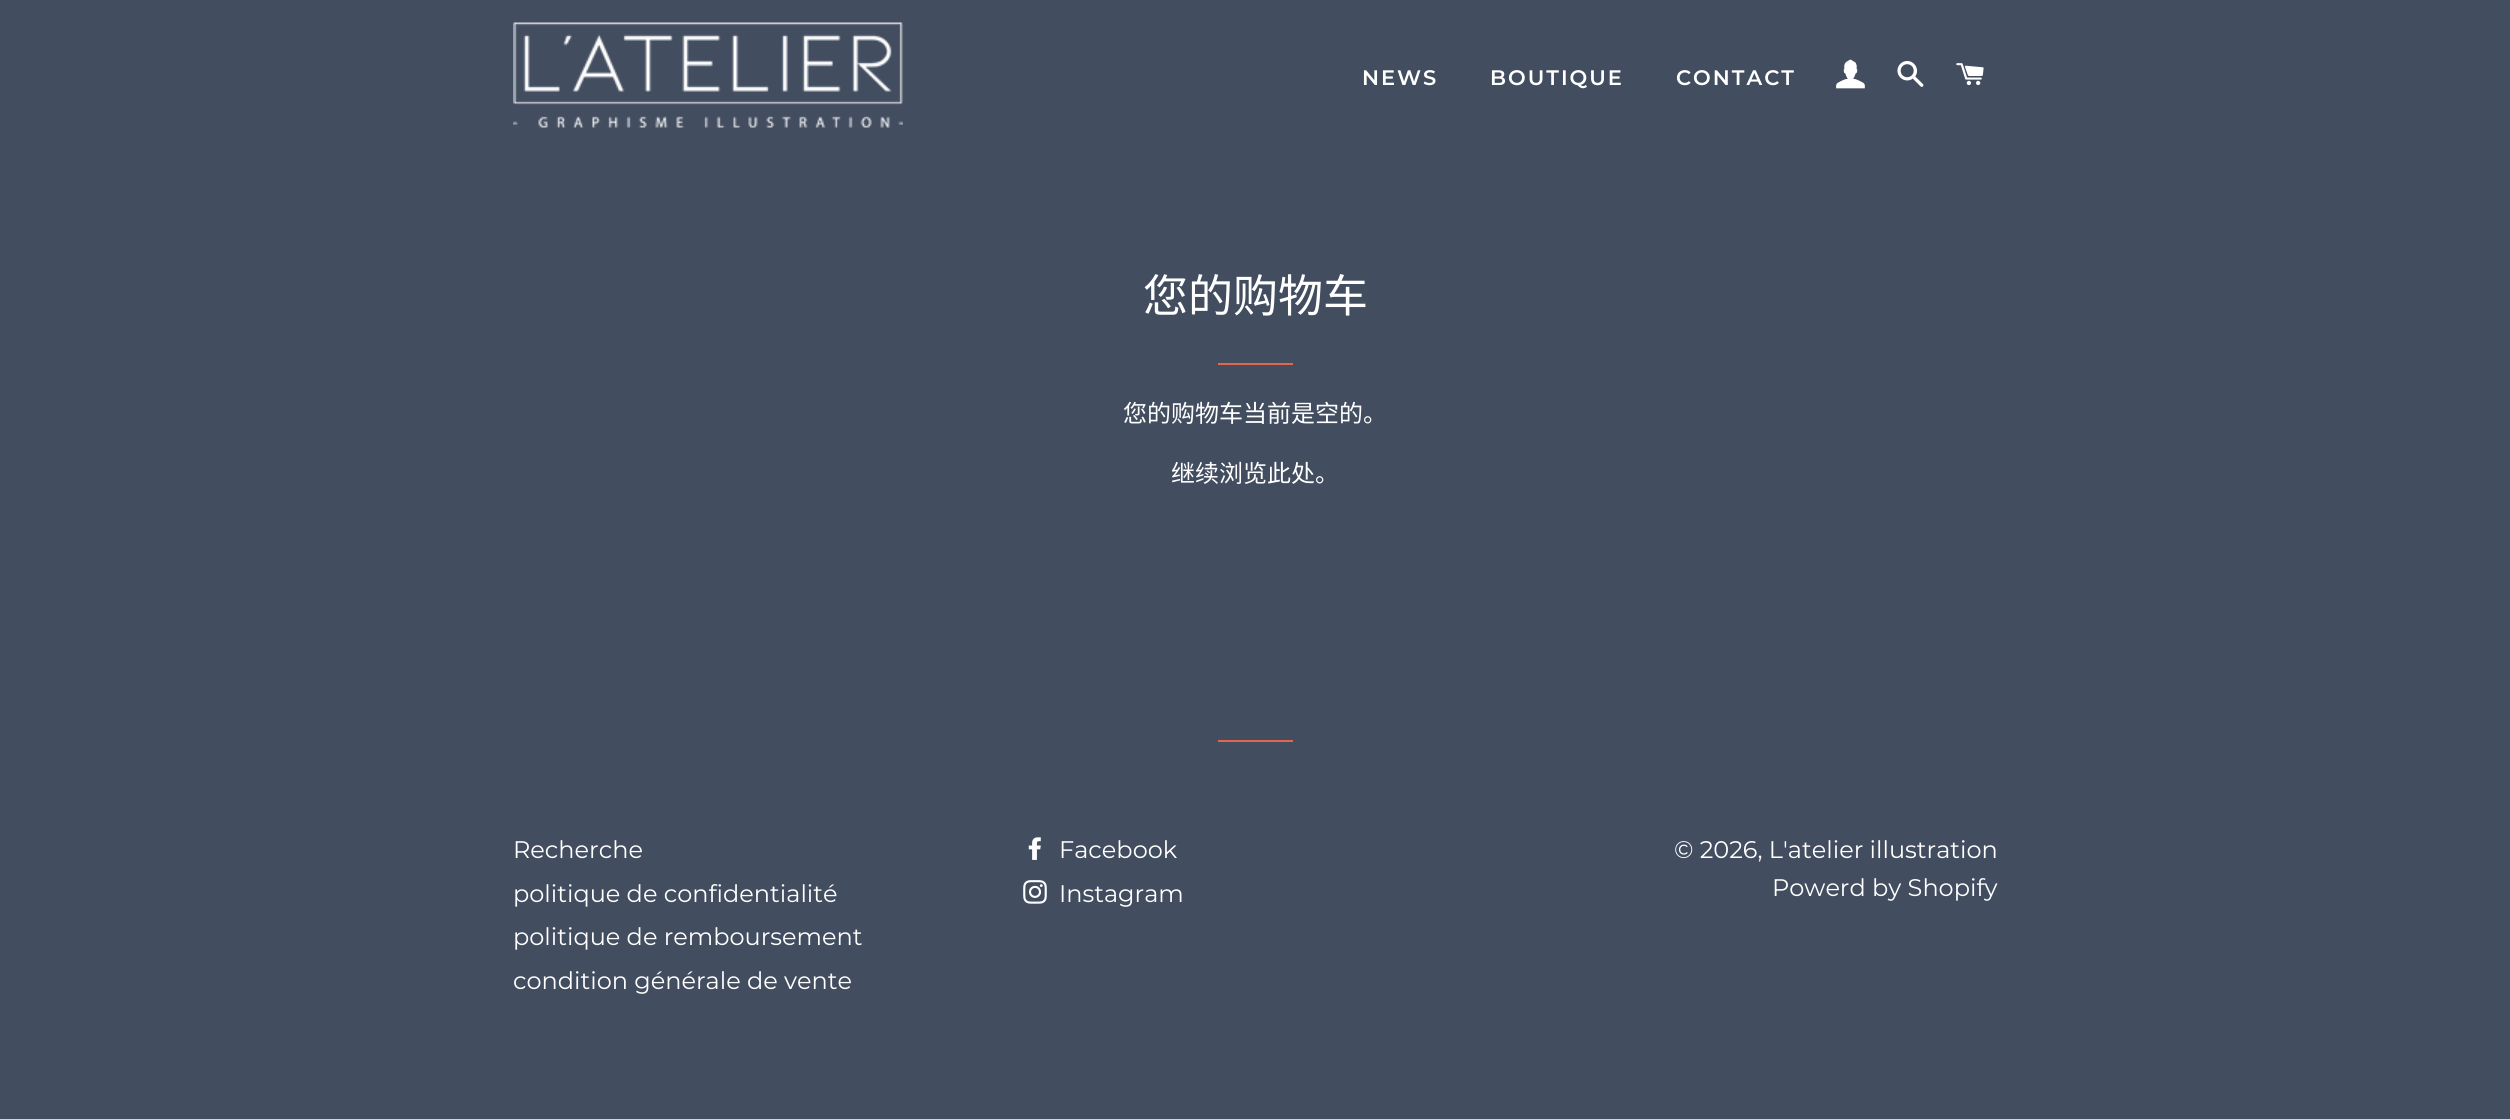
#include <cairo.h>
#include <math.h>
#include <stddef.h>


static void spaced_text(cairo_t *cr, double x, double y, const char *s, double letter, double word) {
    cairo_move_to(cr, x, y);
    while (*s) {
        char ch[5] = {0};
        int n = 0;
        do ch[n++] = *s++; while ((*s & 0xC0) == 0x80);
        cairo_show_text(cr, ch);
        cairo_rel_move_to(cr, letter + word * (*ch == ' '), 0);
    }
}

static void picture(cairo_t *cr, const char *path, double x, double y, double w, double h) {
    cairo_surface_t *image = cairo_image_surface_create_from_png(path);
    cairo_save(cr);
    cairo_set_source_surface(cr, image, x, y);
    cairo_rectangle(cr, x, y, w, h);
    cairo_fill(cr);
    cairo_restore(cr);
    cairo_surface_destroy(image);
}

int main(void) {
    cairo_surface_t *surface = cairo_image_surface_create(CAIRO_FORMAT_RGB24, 2510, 1119);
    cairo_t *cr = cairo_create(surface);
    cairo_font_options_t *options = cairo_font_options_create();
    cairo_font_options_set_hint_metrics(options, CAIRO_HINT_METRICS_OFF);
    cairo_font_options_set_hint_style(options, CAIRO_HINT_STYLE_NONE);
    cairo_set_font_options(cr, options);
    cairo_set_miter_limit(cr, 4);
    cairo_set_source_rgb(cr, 0.259, 0.302, 0.376);
    cairo_paint(cr);
    picture(cr, "img1.png", 513, 22, 390, 106);
    cairo_select_font_face(cr, "Montserrat SemiBold", CAIRO_FONT_SLANT_NORMAL, CAIRO_FONT_WEIGHT_NORMAL);
    cairo_set_font_size(cr, 21);
    cairo_set_source_rgb(cr, 1, 1, 1);
    spaced_text(cr, 1362, 85, "NEWS", 2, 0);
    spaced_text(cr, 1490, 85, "BOUTIQUE", 2, 0);
    spaced_text(cr, 1676, 85, "CONTACT", 2, 0);
    picture(cr, "img2.png", 1836, 59, 29, 30);
    picture(cr, "img3.png", 1897, 61, 27, 26);
    picture(cr, "img4.png", 1956, 63, 28, 23);
    cairo_select_font_face(cr, "Noto Sans CJK SC", CAIRO_FONT_SLANT_NORMAL, CAIRO_FONT_WEIGHT_NORMAL);
    cairo_set_font_size(cr, 45);
    cairo_move_to(cr, 1143, 312);
    cairo_show_text(cr, "您的购物车");
    cairo_set_source_rgb(cr, 0.89, 0.396, 0.298);
    cairo_rectangle(cr, 1218, 363, 75, 2);
    cairo_fill(cr);
    cairo_set_font_size(cr, 24);
    cairo_set_source_rgb(cr, 1, 1, 1);
    cairo_move_to(cr, 1123, 422);
    cairo_show_text(cr, "您的购物车当前是空的。");
    cairo_move_to(cr, 1171, 482);
    cairo_show_text(cr, "继续浏览此处。");
    cairo_set_source_rgb(cr, 0.89, 0.396, 0.298);
    cairo_rectangle(cr, 1218, 740, 75, 2);
    cairo_fill(cr);
    cairo_select_font_face(cr, "Montserrat", CAIRO_FONT_SLANT_NORMAL, CAIRO_FONT_WEIGHT_NORMAL);
    cairo_set_source_rgb(cr, 1, 1, 1);
    cairo_move_to(cr, 513, 858);
    cairo_show_text(cr, "Recherche");
    cairo_move_to(cr, 513, 902);
    cairo_show_text(cr, "politique de confidentialité");
    cairo_move_to(cr, 513, 945);
    cairo_show_text(cr, "politique de remboursement");
    cairo_move_to(cr, 513, 989);
    cairo_show_text(cr, "condition générale de vente");
    picture(cr, "img5.png", 1028, 837, 13, 23);
    cairo_move_to(cr, 1059, 858);
    cairo_show_text(cr, "Facebook");
    picture(cr, "img6.png", 1023, 880, 24, 24);
    cairo_move_to(cr, 1059, 902);
    cairo_show_text(cr, "Instagram");
    cairo_move_to(cr, 1674, 858);
    cairo_show_text(cr, "© 2026, L'atelier illustration");
    cairo_move_to(cr, 1772, 896);
    cairo_show_text(cr, "Powerd by Shopify");
    cairo_surface_write_to_png(surface, "page.png");
    cairo_font_options_destroy(options);
    cairo_destroy(cr);
    cairo_surface_destroy(surface);
    return 0;
}
